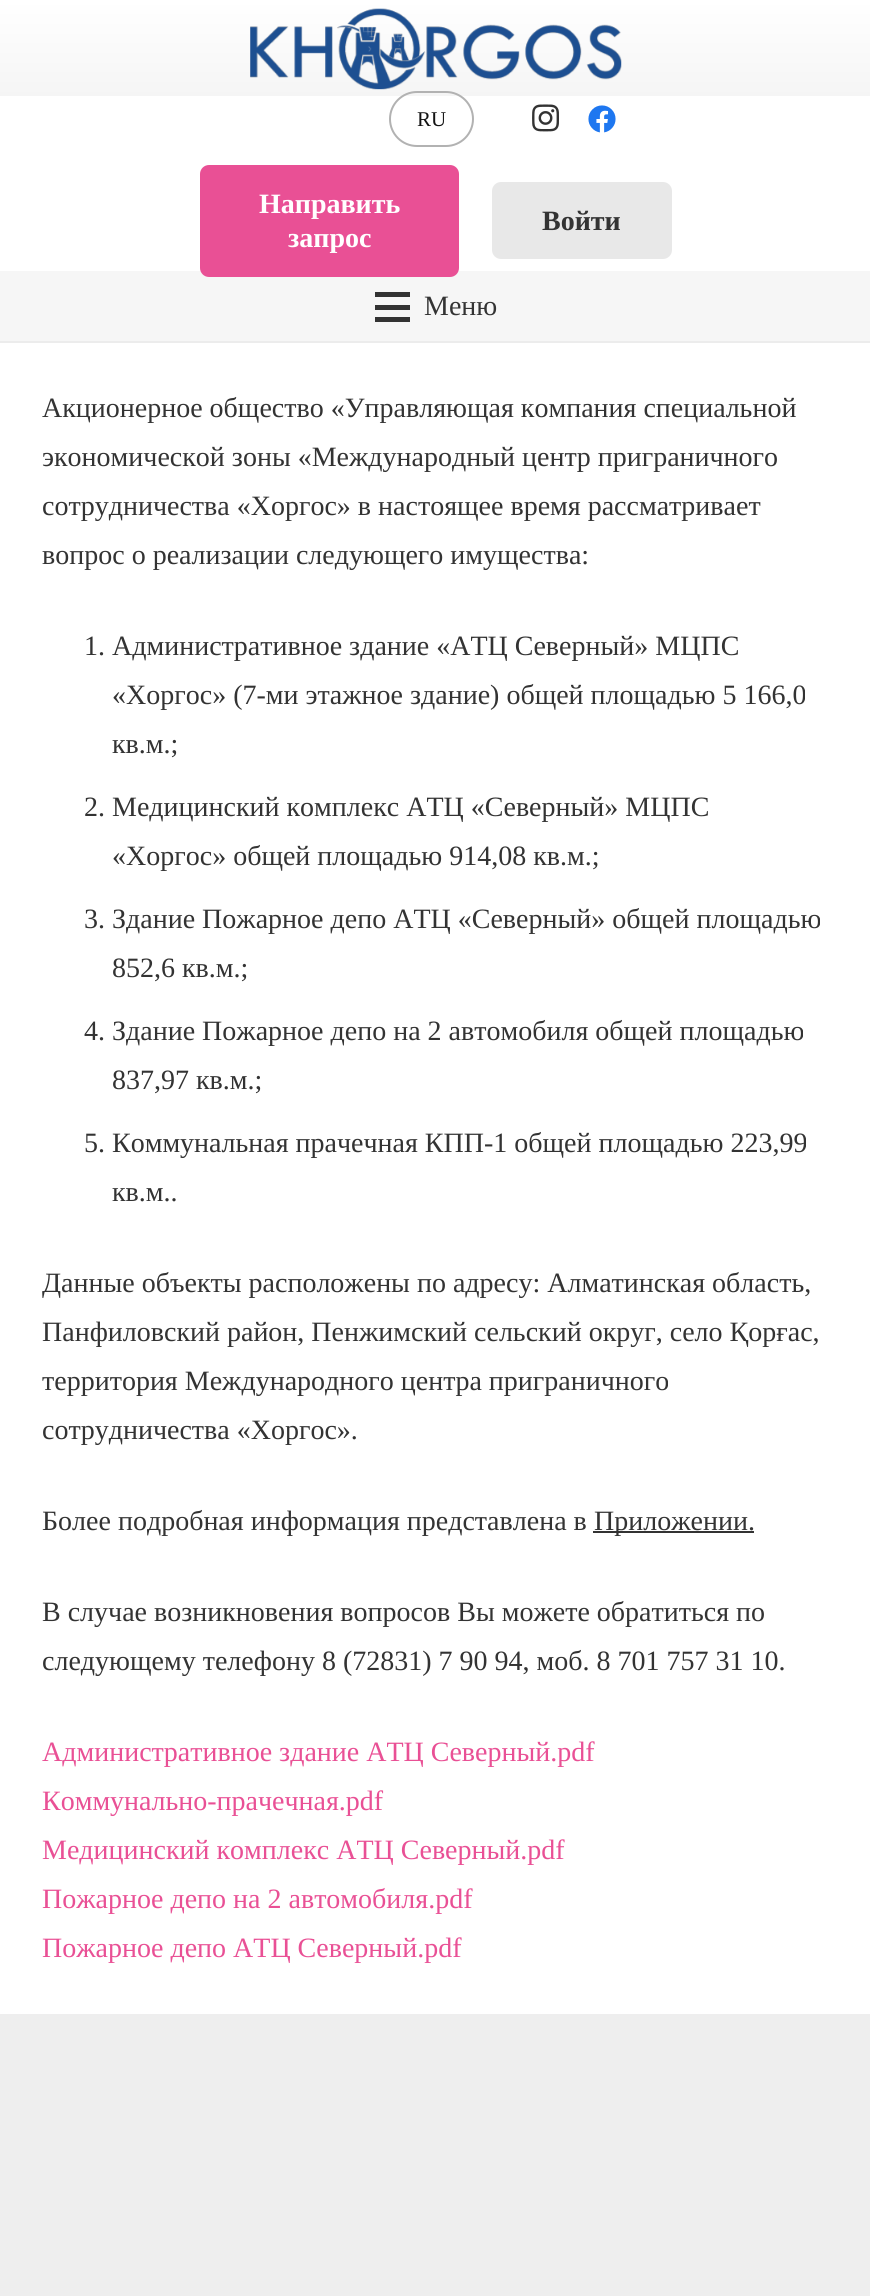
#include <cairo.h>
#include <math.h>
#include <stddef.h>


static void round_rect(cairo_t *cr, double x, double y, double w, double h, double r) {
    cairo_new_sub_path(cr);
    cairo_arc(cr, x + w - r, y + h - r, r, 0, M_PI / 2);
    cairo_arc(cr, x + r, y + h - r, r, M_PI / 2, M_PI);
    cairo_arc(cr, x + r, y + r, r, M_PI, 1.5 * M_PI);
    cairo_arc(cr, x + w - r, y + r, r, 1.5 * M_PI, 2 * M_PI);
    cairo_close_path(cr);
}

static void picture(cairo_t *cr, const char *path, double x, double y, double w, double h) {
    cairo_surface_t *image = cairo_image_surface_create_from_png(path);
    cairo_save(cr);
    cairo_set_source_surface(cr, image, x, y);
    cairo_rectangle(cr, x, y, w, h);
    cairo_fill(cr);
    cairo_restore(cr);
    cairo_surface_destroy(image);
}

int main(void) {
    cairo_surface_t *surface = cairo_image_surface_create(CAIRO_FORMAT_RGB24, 870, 2296);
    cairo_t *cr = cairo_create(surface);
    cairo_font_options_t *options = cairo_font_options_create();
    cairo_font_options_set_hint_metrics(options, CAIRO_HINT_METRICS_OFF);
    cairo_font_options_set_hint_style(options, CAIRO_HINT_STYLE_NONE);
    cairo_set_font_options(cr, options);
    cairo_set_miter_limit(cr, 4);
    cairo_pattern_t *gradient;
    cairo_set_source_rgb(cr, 0.933, 0.933, 0.933);
    cairo_paint(cr);
    cairo_set_source_rgb(cr, 1, 1, 1);
    cairo_rectangle(cr, 0, 96, 870, 1918);
    cairo_fill(cr);
    gradient = cairo_pattern_create_linear(436, 96, 436, 0);
    cairo_pattern_add_color_stop_rgba(gradient, 0, 0.961, 0.961, 0.961, 1);
    cairo_pattern_add_color_stop_rgba(gradient, 1, 1, 1, 1, 1);
    cairo_set_source(cr, gradient);
    cairo_pattern_destroy(gradient);
    cairo_rectangle(cr, 0, 0, 870, 96);
    cairo_fill(cr);
    picture(cr, "img1.png", 250, 8, 372, 82);
    round_rect(cr, 390, 92, 83, 54, 27);
    cairo_set_source_rgb(cr, 0.698, 0.698, 0.698);
    cairo_stroke(cr);
    cairo_select_font_face(cr, "Liberation Serif", CAIRO_FONT_SLANT_NORMAL, CAIRO_FONT_WEIGHT_NORMAL);
    cairo_set_font_size(cr, 21);
    cairo_set_source_rgb(cr, 0.078, 0.078, 0.078);
    cairo_move_to(cr, 417, 126);
    cairo_show_text(cr, "RU");
    picture(cr, "img2.png", 532, 104, 27, 28);
    picture(cr, "img3.png", 588, 105, 28, 28);
    cairo_set_source_rgb(cr, 0.961, 0.961, 0.961);
    cairo_rectangle(cr, 0, 271, 870, 70);
    cairo_fill(cr);
    cairo_set_source_rgb(cr, 0.914, 0.314, 0.584);
    round_rect(cr, 200, 165, 259, 112, 9);
    cairo_fill(cr);
    cairo_select_font_face(cr, "Liberation Serif", CAIRO_FONT_SLANT_NORMAL, CAIRO_FONT_WEIGHT_BOLD);
    cairo_set_font_size(cr, 28);
    cairo_set_source_rgb(cr, 1, 1, 1);
    cairo_move_to(cr, 259, 213);
    cairo_show_text(cr, "Направить");
    cairo_move_to(cr, 288, 247);
    cairo_show_text(cr, "запрос");
    cairo_set_source_rgb(cr, 0.91, 0.91, 0.91);
    round_rect(cr, 492, 182, 180, 77, 9);
    cairo_fill(cr);
    cairo_set_source_rgb(cr, 0.2, 0.2, 0.2);
    cairo_move_to(cr, 542, 230);
    cairo_show_text(cr, "Войти");
    cairo_set_source_rgb(cr, 0.922, 0.922, 0.922);
    cairo_new_path(cr);
    cairo_move_to(cr, 0, 341);
    cairo_line_to(cr, 0, 343);
    cairo_line_to(cr, 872, 343);
    cairo_line_to(cr, 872, 273);
    cairo_line_to(cr, 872, 341);
    cairo_close_path(cr);
    cairo_fill(cr);
    cairo_set_source_rgb(cr, 0.2, 0.2, 0.2);
    cairo_rectangle(cr, 375, 305, 35, 5);
    cairo_fill(cr);
    cairo_rectangle(cr, 375, 292, 35, 5);
    cairo_fill(cr);
    cairo_rectangle(cr, 375, 317, 35, 5);
    cairo_fill(cr);
    cairo_select_font_face(cr, "Liberation Serif", CAIRO_FONT_SLANT_NORMAL, CAIRO_FONT_WEIGHT_NORMAL);
    cairo_move_to(cr, 424, 315);
    cairo_show_text(cr, "Меню");
    cairo_move_to(cr, 42, 417);
    cairo_show_text(cr, "Акционерное общество «Управляющая компания специальной");
    cairo_move_to(cr, 42, 466);
    cairo_show_text(cr, "экономической зоны «Международный центр приграничного");
    cairo_move_to(cr, 42, 515);
    cairo_show_text(cr, "сотрудничества «Хоргос» в настоящее время рассматривает");
    cairo_move_to(cr, 42, 564);
    cairo_show_text(cr, "вопрос о реализации следующего имущества:");
    cairo_move_to(cr, 84, 655);
    cairo_show_text(cr, "1. Административное здание «АТЦ Северный» МЦПС");
    cairo_move_to(cr, 112, 704);
    cairo_show_text(cr, "«Хоргос» (7-ми этажное здание) общей площадью 5 166,0");
    cairo_move_to(cr, 112, 753);
    cairo_show_text(cr, "кв.м.;");
    cairo_move_to(cr, 84, 816);
    cairo_show_text(cr, "2. Медицинский комплекс АТЦ «Северный» МЦПС");
    cairo_move_to(cr, 112, 865);
    cairo_show_text(cr, "«Хоргос» общей площадью 914,08 кв.м.;");
    cairo_move_to(cr, 84, 928);
    cairo_show_text(cr, "3. Здание Пожарное депо АТЦ «Северный» общей площадью");
    cairo_move_to(cr, 112, 977);
    cairo_show_text(cr, "852,6 кв.м.;");
    cairo_move_to(cr, 84, 1040);
    cairo_show_text(cr, "4. Здание Пожарное депо на 2 автомобиля общей площадью");
    cairo_move_to(cr, 112, 1089);
    cairo_show_text(cr, "837,97 кв.м.;");
    cairo_move_to(cr, 84, 1152);
    cairo_show_text(cr, "5. Коммунальная прачечная КПП-1 общей площадью 223,99");
    cairo_move_to(cr, 112, 1201);
    cairo_show_text(cr, "кв.м..");
    cairo_move_to(cr, 42, 1292);
    cairo_show_text(cr, "Данные объекты расположены по адресу: Алматинская область,");
    cairo_move_to(cr, 42, 1341);
    cairo_show_text(cr, "Панфиловский район, Пенжимский сельский округ, село Қорғас,");
    cairo_move_to(cr, 42, 1390);
    cairo_show_text(cr, "территория Международного центра приграничного");
    cairo_move_to(cr, 42, 1439);
    cairo_show_text(cr, "сотрудничества «Хоргос».");
    cairo_move_to(cr, 42, 1530);
    cairo_show_text(cr, "Более подробная информация представлена в");
    cairo_rectangle(cr, 593, 1531, 161, 2);
    cairo_fill(cr);
    cairo_move_to(cr, 594, 1530);
    cairo_show_text(cr, "Приложении.");
    cairo_move_to(cr, 42, 1621);
    cairo_show_text(cr, "В случае возникновения вопросов Вы можете обратиться по");
    cairo_move_to(cr, 42, 1670);
    cairo_show_text(cr, "следующему телефону 8 (72831) 7 90 94, моб. 8 701 757 31 10.");
    cairo_set_source_rgb(cr, 0.914, 0.314, 0.584);
    cairo_move_to(cr, 42, 1761);
    cairo_show_text(cr, "Административное здание АТЦ Северный.pdf");
    cairo_move_to(cr, 42, 1810);
    cairo_show_text(cr, "Коммунально-прачечная.pdf");
    cairo_move_to(cr, 42, 1859);
    cairo_show_text(cr, "Медицинский комплекс АТЦ Северный.pdf");
    cairo_move_to(cr, 42, 1908);
    cairo_show_text(cr, "Пожарное депо на 2 автомобиля.pdf");
    cairo_move_to(cr, 42, 1957);
    cairo_show_text(cr, "Пожарное депо АТЦ Северный.pdf");
    cairo_surface_write_to_png(surface, "page.png");
    cairo_font_options_destroy(options);
    cairo_destroy(cr);
    cairo_surface_destroy(surface);
    return 0;
}
